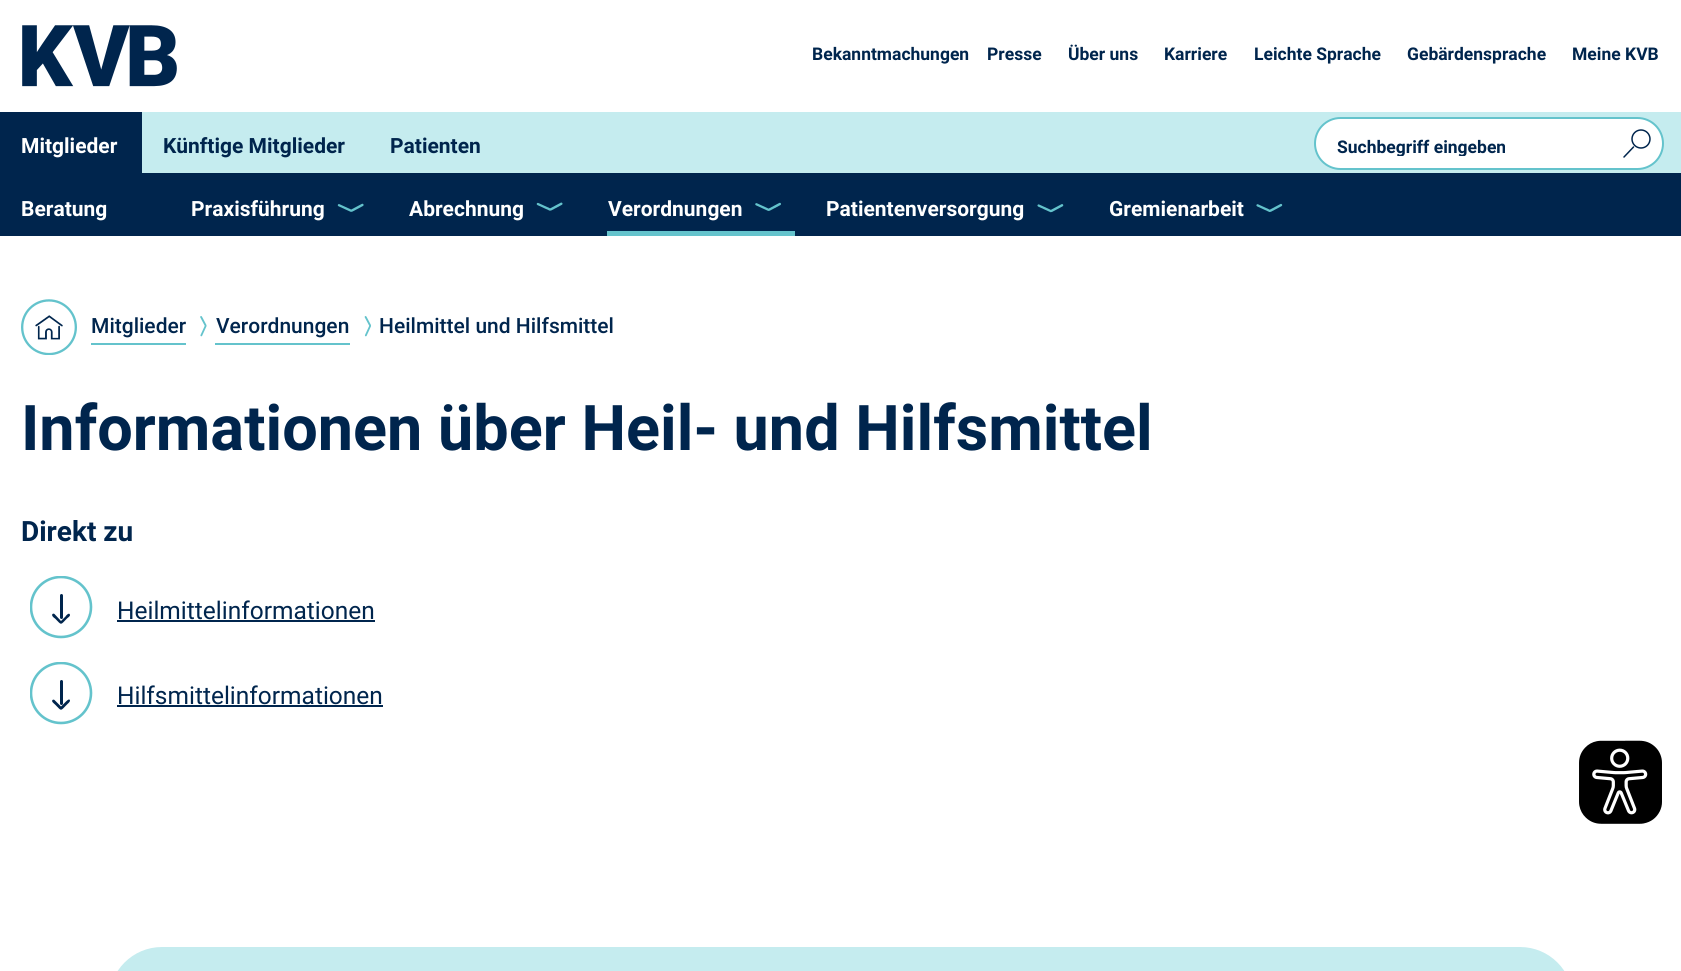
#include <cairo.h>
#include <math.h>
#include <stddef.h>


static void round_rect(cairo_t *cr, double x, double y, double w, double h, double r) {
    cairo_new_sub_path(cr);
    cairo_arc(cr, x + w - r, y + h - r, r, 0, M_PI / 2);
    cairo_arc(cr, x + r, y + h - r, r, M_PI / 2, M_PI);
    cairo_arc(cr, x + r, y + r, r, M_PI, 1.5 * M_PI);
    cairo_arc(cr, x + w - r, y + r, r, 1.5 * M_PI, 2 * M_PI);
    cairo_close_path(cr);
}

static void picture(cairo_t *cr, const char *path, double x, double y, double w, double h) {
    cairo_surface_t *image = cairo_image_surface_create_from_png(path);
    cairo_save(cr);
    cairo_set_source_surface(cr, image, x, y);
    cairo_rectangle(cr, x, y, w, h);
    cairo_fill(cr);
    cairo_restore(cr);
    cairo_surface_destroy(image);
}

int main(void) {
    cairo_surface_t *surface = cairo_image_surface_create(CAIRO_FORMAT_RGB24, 1681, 971);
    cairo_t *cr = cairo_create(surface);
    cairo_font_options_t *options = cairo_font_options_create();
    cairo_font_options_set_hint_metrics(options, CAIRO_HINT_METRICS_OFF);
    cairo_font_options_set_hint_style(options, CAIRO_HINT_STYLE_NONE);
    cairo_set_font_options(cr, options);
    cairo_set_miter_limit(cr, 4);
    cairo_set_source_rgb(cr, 1, 1, 1);
    cairo_paint(cr);
    picture(cr, "img1.png", 22, 25, 155, 62);
    cairo_select_font_face(cr, "Roboto", CAIRO_FONT_SLANT_NORMAL, CAIRO_FONT_WEIGHT_BOLD);
    cairo_set_font_size(cr, 17.5);
    cairo_set_source_rgb(cr, 0, 0.145, 0.302);
    cairo_move_to(cr, 812, 60);
    cairo_show_text(cr, "Bekanntmachungen");
    cairo_move_to(cr, 987, 60);
    cairo_show_text(cr, "Presse");
    cairo_move_to(cr, 1068, 60);
    cairo_show_text(cr, "Über uns");
    cairo_move_to(cr, 1164, 60);
    cairo_show_text(cr, "Karriere");
    cairo_move_to(cr, 1254, 60);
    cairo_show_text(cr, "Leichte Sprache");
    cairo_move_to(cr, 1407, 60);
    cairo_show_text(cr, "Gebärdensprache");
    cairo_move_to(cr, 1572, 60);
    cairo_show_text(cr, "Meine KVB");
    cairo_set_source_rgb(cr, 0.773, 0.922, 0.937);
    cairo_rectangle(cr, 142, 112, 1539, 61);
    cairo_fill(cr);
    cairo_set_source_rgb(cr, 0, 0.145, 0.302);
    cairo_rectangle(cr, 0, 112, 142, 61);
    cairo_fill(cr);
    cairo_set_font_size(cr, 21);
    cairo_set_source_rgb(cr, 1, 1, 1);
    cairo_move_to(cr, 21, 153);
    cairo_show_text(cr, "Mitglieder");
    cairo_set_source_rgb(cr, 0, 0.145, 0.302);
    cairo_move_to(cr, 163, 153);
    cairo_show_text(cr, "Künftige Mitglieder");
    cairo_move_to(cr, 390, 153);
    cairo_show_text(cr, "Patienten");
    cairo_set_source_rgb(cr, 1, 1, 1);
    round_rect(cr, 1315, 118, 348, 51, 25.5);
    cairo_fill_preserve(cr);
    cairo_set_source_rgb(cr, 0.392, 0.765, 0.8);
    cairo_stroke(cr);
    cairo_save(cr);
    cairo_rectangle(cr, 1337, 137, 282, 19);
    cairo_clip(cr);
    cairo_set_font_size(cr, 17.5);
    cairo_set_source_rgb(cr, 0, 0.145, 0.302);
    cairo_move_to(cr, 1337, 153);
    cairo_show_text(cr, "Suchbegriff eingeben");
    cairo_restore(cr);
    cairo_new_path(cr);
    cairo_arc(cr, 1641, 139, 9, 0, 2 * M_PI);
    cairo_set_source_rgb(cr, 0, 0.145, 0.302);
    cairo_set_line_width(cr, 1.5);
    cairo_stroke(cr);
    cairo_new_path(cr);
    cairo_move_to(cr, 1633.5, 147);
    cairo_line_to(cr, 1624, 157);
    cairo_set_line_cap(cr, CAIRO_LINE_CAP_ROUND);
    cairo_stroke(cr);
    cairo_rectangle(cr, 0, 173, 1681, 63);
    cairo_fill(cr);
    cairo_set_source_rgb(cr, 1, 1, 1);
    cairo_move_to(cr, 21, 216);
    cairo_show_text(cr, "Beratung");
    cairo_move_to(cr, 191, 216);
    cairo_show_text(cr, "Praxisführung");
    picture(cr, "img2.png", 337, 203, 27, 9);
    cairo_move_to(cr, 409, 216);
    cairo_show_text(cr, "Abrechnung");
    picture(cr, "img3.png", 536, 202, 27, 9);
    cairo_move_to(cr, 608, 216);
    cairo_show_text(cr, "Verordnungen");
    picture(cr, "img4.png", 755, 202, 26, 9);
    cairo_set_source_rgb(cr, 0.392, 0.765, 0.8);
    cairo_rectangle(cr, 607, 231, 188, 5);
    cairo_fill(cr);
    cairo_set_source_rgb(cr, 1, 1, 1);
    cairo_move_to(cr, 826, 216);
    cairo_show_text(cr, "Patientenversorgung");
    picture(cr, "img5.png", 1037, 204, 27, 9);
    cairo_move_to(cr, 1109, 216);
    cairo_show_text(cr, "Gremienarbeit");
    picture(cr, "img6.png", 1256, 203, 27, 9);
    picture(cr, "img7.png", 21, 299, 56, 56);
    cairo_select_font_face(cr, "Roboto Medium", CAIRO_FONT_SLANT_NORMAL, CAIRO_FONT_WEIGHT_NORMAL);
    cairo_set_source_rgb(cr, 0, 0.145, 0.302);
    cairo_move_to(cr, 91, 333);
    cairo_show_text(cr, "Mitglieder");
    cairo_set_source_rgb(cr, 0.392, 0.765, 0.8);
    cairo_rectangle(cr, 91, 343, 95, 2);
    cairo_fill(cr);
    picture(cr, "img8.png", 200, 316, 7, 21);
    cairo_set_source_rgb(cr, 0, 0.145, 0.302);
    cairo_move_to(cr, 216, 333);
    cairo_show_text(cr, "Verordnungen");
    cairo_set_source_rgb(cr, 0.392, 0.765, 0.8);
    cairo_rectangle(cr, 215, 343, 135, 2);
    cairo_fill(cr);
    picture(cr, "img9.png", 364, 316, 7, 21);
    cairo_set_source_rgb(cr, 0, 0.145, 0.302);
    cairo_move_to(cr, 379, 333);
    cairo_show_text(cr, "Heilmittel und Hilfsmittel");
    cairo_select_font_face(cr, "Roboto", CAIRO_FONT_SLANT_NORMAL, CAIRO_FONT_WEIGHT_BOLD);
    cairo_set_font_size(cr, 63);
    cairo_move_to(cr, 21, 450);
    cairo_show_text(cr, "Informationen über Heil- und Hilfsmittel");
    cairo_set_font_size(cr, 28);
    cairo_move_to(cr, 21, 541);
    cairo_show_text(cr, "Direkt zu");
    cairo_save(cr);
    cairo_rectangle(cr, 30, 576, 63, 63);
    cairo_clip(cr);
    cairo_arc(cr, 61, 607, 30, 0, 2 * M_PI);
    cairo_set_source_rgb(cr, 0.392, 0.765, 0.8);
    cairo_set_line_width(cr, 2.6);
    cairo_set_line_cap(cr, CAIRO_LINE_CAP_BUTT);
    cairo_stroke(cr);
    cairo_restore(cr);
    round_rect(cr, 60, 594, 3, 25, 1.5);
    cairo_fill(cr);
    cairo_new_path(cr);
    cairo_move_to(cr, 52.5, 614);
    cairo_curve_to(cr, 53, 613.5, 54, 613.5, 54.5, 614);
    cairo_line_to(cr, 61, 621);
    cairo_line_to(cr, 65.5, 616.5);
    cairo_curve_to(cr, 65.5, 616, 69.5, 611.5, 70, 615);
    cairo_curve_to(cr, 70, 616.5, 68, 617.5, 67, 618.5);
    cairo_curve_to(cr, 60, 625.5, 62, 625.5, 55, 618.5);
    cairo_curve_to(cr, 54, 618, 51, 615.5, 52.5, 614);
    cairo_close_path(cr);
    cairo_fill(cr);
    cairo_select_font_face(cr, "Roboto", CAIRO_FONT_SLANT_NORMAL, CAIRO_FONT_WEIGHT_NORMAL);
    cairo_set_font_size(cr, 24.5);
    cairo_move_to(cr, 117, 619);
    cairo_show_text(cr, "Heilmittelinformationen");
    cairo_rectangle(cr, 117, 620, 258, 2);
    cairo_fill(cr);
    cairo_save(cr);
    cairo_rectangle(cr, 30, 662, 63, 63);
    cairo_clip(cr);
    cairo_arc(cr, 61, 693, 30, 0, 2 * M_PI);
    cairo_set_source_rgb(cr, 0.392, 0.765, 0.8);
    cairo_set_line_width(cr, 2.6);
    cairo_set_line_cap(cr, CAIRO_LINE_CAP_BUTT);
    cairo_stroke(cr);
    cairo_restore(cr);
    round_rect(cr, 60, 680, 3, 25, 1.5);
    cairo_fill(cr);
    cairo_new_path(cr);
    cairo_move_to(cr, 52.5, 700);
    cairo_curve_to(cr, 53, 699.5, 54, 699.5, 54.5, 700);
    cairo_line_to(cr, 61, 706.5);
    cairo_line_to(cr, 65.5, 702);
    cairo_curve_to(cr, 65.5, 702, 69.5, 697.5, 70, 700.5);
    cairo_curve_to(cr, 70, 702, 68, 703.5, 67, 704.5);
    cairo_curve_to(cr, 60, 711.5, 62, 711.5, 55, 704.5);
    cairo_curve_to(cr, 54, 703.5, 51, 701.5, 52.5, 700);
    cairo_close_path(cr);
    cairo_fill(cr);
    cairo_move_to(cr, 117, 704);
    cairo_show_text(cr, "Hilfsmittelinformationen");
    cairo_rectangle(cr, 117, 705, 266, 2);
    cairo_fill(cr);
    cairo_set_source_rgb(cr, 0.773, 0.922, 0.937);
    round_rect(cr, 109, 947, 1464, 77, 53);
    cairo_fill(cr);
    picture(cr, "img10.png", 1579, 740, 83, 84);
    cairo_surface_write_to_png(surface, "page.png");
    cairo_font_options_destroy(options);
    cairo_destroy(cr);
    cairo_surface_destroy(surface);
    return 0;
}
